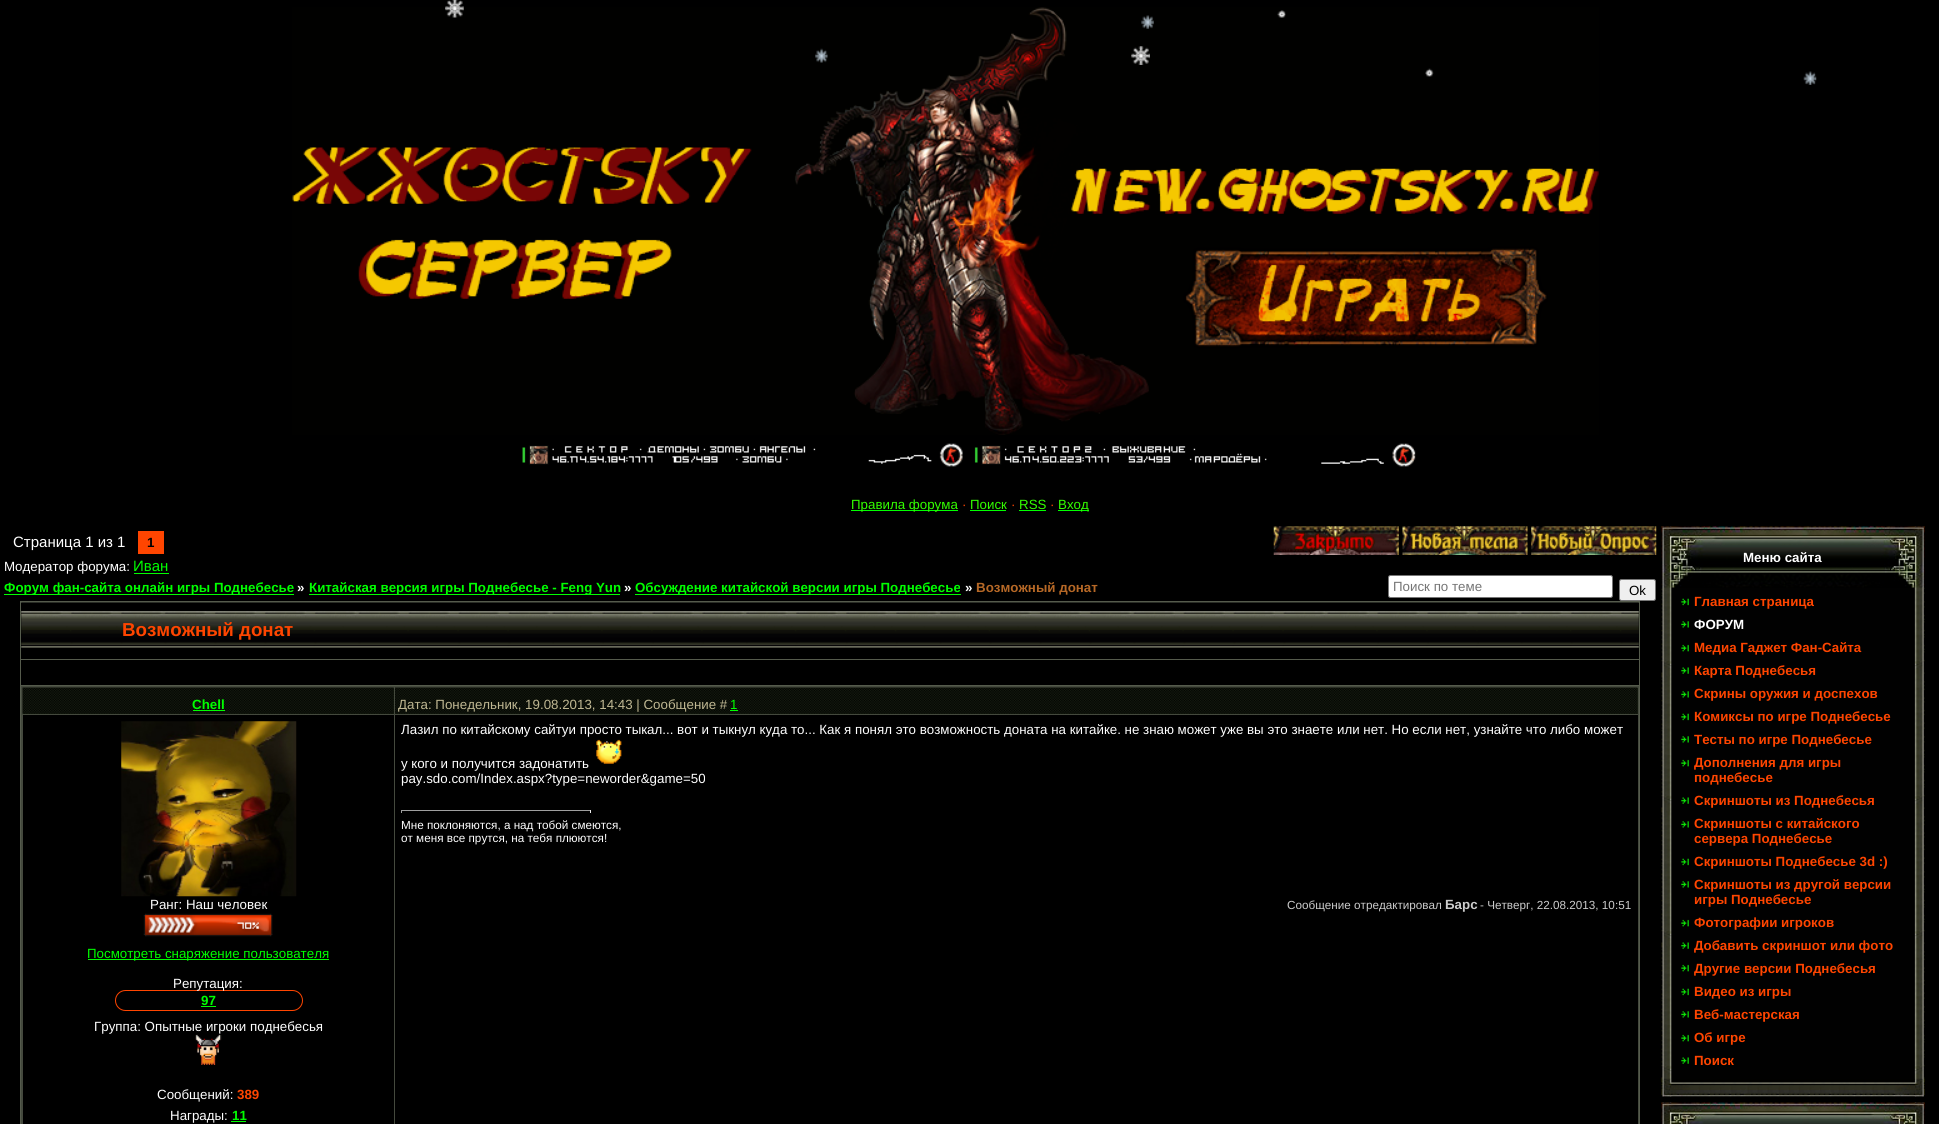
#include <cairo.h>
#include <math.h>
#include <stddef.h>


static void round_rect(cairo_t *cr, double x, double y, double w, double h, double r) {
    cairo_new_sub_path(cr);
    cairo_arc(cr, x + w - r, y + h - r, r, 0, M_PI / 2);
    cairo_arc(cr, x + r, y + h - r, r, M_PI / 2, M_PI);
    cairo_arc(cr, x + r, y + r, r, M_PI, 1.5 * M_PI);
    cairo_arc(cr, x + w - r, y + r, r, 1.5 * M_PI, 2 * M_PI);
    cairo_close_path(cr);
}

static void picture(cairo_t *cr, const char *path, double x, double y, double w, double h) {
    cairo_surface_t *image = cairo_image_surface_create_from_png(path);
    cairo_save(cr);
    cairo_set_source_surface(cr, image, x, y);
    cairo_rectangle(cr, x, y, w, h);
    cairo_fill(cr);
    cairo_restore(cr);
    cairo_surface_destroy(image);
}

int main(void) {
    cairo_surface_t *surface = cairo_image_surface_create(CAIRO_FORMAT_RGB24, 1939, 1124);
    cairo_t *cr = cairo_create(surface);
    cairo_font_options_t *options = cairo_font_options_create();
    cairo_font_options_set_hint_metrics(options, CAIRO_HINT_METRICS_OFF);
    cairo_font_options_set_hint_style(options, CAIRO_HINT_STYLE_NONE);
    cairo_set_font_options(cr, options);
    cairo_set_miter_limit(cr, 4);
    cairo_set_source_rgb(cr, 0, 0, 0);
    cairo_paint(cr);
    picture(cr, "img8.png", 292, 7, 1307, 428);
    picture(cr, "img1.png", 445, 0, 19, 18);
    picture(cr, "img2.png", 1277, 10, 9, 8);
    picture(cr, "img3.png", 1141, 15, 13, 14);
    picture(cr, "img4.png", 815, 48, 13, 15);
    picture(cr, "img5.png", 1131, 46, 19, 19);
    picture(cr, "img6.png", 1425, 68, 9, 9);
    picture(cr, "img7.png", 1803, 71, 14, 14);
    picture(cr, "img9.png", 522, 443, 441, 24);
    picture(cr, "img10.png", 974, 443, 442, 24);
    cairo_set_source_rgb(cr, 0, 1, 0);
    cairo_rectangle(cr, 851, 510, 107, 1);
    cairo_fill(cr);
    cairo_select_font_face(cr, "Liberation Sans", CAIRO_FONT_SLANT_NORMAL, CAIRO_FONT_WEIGHT_NORMAL);
    cairo_set_font_size(cr, 13.33);
    cairo_set_source_rgb(cr, 0.2, 1, 0);
    cairo_move_to(cr, 851, 509);
    cairo_show_text(cr, "Правила форума");
    cairo_set_source_rgb(cr, 1, 0.271, 0);
    cairo_move_to(cr, 962, 509);
    cairo_show_text(cr, "·");
    cairo_set_source_rgb(cr, 0.2, 1, 0);
    cairo_move_to(cr, 970, 509);
    cairo_show_text(cr, "Поиск");
    cairo_set_source_rgb(cr, 0, 1, 0);
    cairo_rectangle(cr, 970, 510, 36, 1);
    cairo_fill(cr);
    cairo_set_source_rgb(cr, 1, 0.271, 0);
    cairo_move_to(cr, 1011, 509);
    cairo_show_text(cr, "·");
    cairo_set_source_rgb(cr, 0.2, 1, 0);
    cairo_move_to(cr, 1019, 509);
    cairo_show_text(cr, "RSS");
    cairo_set_source_rgb(cr, 0, 1, 0);
    cairo_rectangle(cr, 1019, 510, 27, 1);
    cairo_fill(cr);
    cairo_set_source_rgb(cr, 1, 0.271, 0);
    cairo_move_to(cr, 1050, 509);
    cairo_show_text(cr, "·");
    cairo_set_source_rgb(cr, 0, 1, 0);
    cairo_rectangle(cr, 1058, 510, 31, 1);
    cairo_fill(cr);
    cairo_set_source_rgb(cr, 0.2, 1, 0);
    cairo_move_to(cr, 1058, 509);
    cairo_show_text(cr, "Вход");
    cairo_set_font_size(cr, 15);
    cairo_set_source_rgb(cr, 1, 1, 1);
    cairo_move_to(cr, 13, 547);
    cairo_show_text(cr, "Страница 1 из 1");
    cairo_set_source_rgb(cr, 1, 0.271, 0);
    cairo_rectangle(cr, 138, 531, 26, 23);
    cairo_fill(cr);
    cairo_select_font_face(cr, "Liberation Sans", CAIRO_FONT_SLANT_NORMAL, CAIRO_FONT_WEIGHT_BOLD);
    cairo_set_font_size(cr, 13.33);
    cairo_set_source_rgb(cr, 0, 0, 0);
    cairo_move_to(cr, 147, 547);
    cairo_show_text(cr, "1");
    picture(cr, "img11.png", 1273, 526, 126, 29);
    picture(cr, "img12.png", 1402, 526, 126, 29);
    picture(cr, "img13.png", 1531, 526, 126, 29);
    cairo_select_font_face(cr, "Liberation Sans", CAIRO_FONT_SLANT_NORMAL, CAIRO_FONT_WEIGHT_NORMAL);
    cairo_set_source_rgb(cr, 1, 1, 1);
    cairo_move_to(cr, 4, 571);
    cairo_show_text(cr, "Модератор форума:");
    cairo_set_font_size(cr, 15);
    cairo_set_source_rgb(cr, 0, 1, 0);
    cairo_move_to(cr, 133, 571);
    cairo_show_text(cr, "Иван");
    cairo_rectangle(cr, 134, 573, 35, 1);
    cairo_fill(cr);
    cairo_rectangle(cr, 4, 594, 290, 1);
    cairo_fill(cr);
    cairo_select_font_face(cr, "Liberation Sans", CAIRO_FONT_SLANT_NORMAL, CAIRO_FONT_WEIGHT_BOLD);
    cairo_set_font_size(cr, 13.33);
    cairo_move_to(cr, 4, 592);
    cairo_show_text(cr, "Форум фан-сайта онлайн игры Поднебесье");
    cairo_set_source_rgb(cr, 1, 1, 1);
    cairo_move_to(cr, 297, 592);
    cairo_show_text(cr, "»");
    cairo_set_source_rgb(cr, 0, 1, 0);
    cairo_rectangle(cr, 309, 594, 311, 1);
    cairo_fill(cr);
    cairo_move_to(cr, 309, 592);
    cairo_show_text(cr, "Китайская версия игры Поднебесье - Feng Yun");
    cairo_set_source_rgb(cr, 1, 1, 1);
    cairo_move_to(cr, 624, 592);
    cairo_show_text(cr, "»");
    cairo_set_source_rgb(cr, 0, 1, 0);
    cairo_rectangle(cr, 635, 594, 326, 1);
    cairo_fill(cr);
    cairo_move_to(cr, 635, 592);
    cairo_show_text(cr, "Обсуждение китайской версии игры Поднебесье");
    cairo_set_source_rgb(cr, 1, 1, 1);
    cairo_move_to(cr, 965, 592);
    cairo_show_text(cr, "»");
    cairo_set_source_rgb(cr, 0.714, 0.408, 0.149);
    cairo_move_to(cr, 976, 592);
    cairo_show_text(cr, "Возможный донат");
    cairo_set_source_rgb(cr, 1, 1, 1);
    round_rect(cr, 1388.5, 575.5, 224, 22, 2);
    cairo_fill_preserve(cr);
    cairo_set_source_rgb(cr, 0.463, 0.463, 0.463);
    cairo_set_line_width(cr, 1);
    cairo_stroke(cr);
    cairo_select_font_face(cr, "Liberation Sans", CAIRO_FONT_SLANT_NORMAL, CAIRO_FONT_WEIGHT_NORMAL);
    cairo_set_source_rgb(cr, 0.459, 0.459, 0.459);
    cairo_move_to(cr, 1393, 591);
    cairo_show_text(cr, "Поиск по теме");
    cairo_set_source_rgb(cr, 0.937, 0.937, 0.937);
    round_rect(cr, 1619.5, 579.5, 36, 21, 2);
    cairo_fill_preserve(cr);
    cairo_set_source_rgb(cr, 0.463, 0.463, 0.463);
    cairo_stroke(cr);
    cairo_set_source_rgb(cr, 0, 0, 0);
    cairo_move_to(cr, 1629, 595);
    cairo_show_text(cr, "Ok");
    cairo_set_source_rgb(cr, 0.333, 0.357, 0.298);
    cairo_rectangle(cr, 20, 601, 1620, 523);
    cairo_fill(cr);
    cairo_set_source_rgb(cr, 0, 0, 0);
    cairo_rectangle(cr, 21, 603, 1618, 56);
    cairo_fill(cr);
    picture(cr, "img14.png", 21, 602, 1618, 46);
    cairo_select_font_face(cr, "Liberation Sans", CAIRO_FONT_SLANT_NORMAL, CAIRO_FONT_WEIGHT_BOLD);
    cairo_set_font_size(cr, 18.75);
    cairo_set_source_rgb(cr, 1, 0.271, 0);
    cairo_move_to(cr, 122, 636);
    cairo_show_text(cr, "Возможный донат");
    cairo_set_source_rgb(cr, 0, 0, 0);
    cairo_rectangle(cr, 21, 660, 1618, 25);
    cairo_fill(cr);
    cairo_set_source_rgb(cr, 0.267, 0.286, 0.239);
    cairo_rectangle(cr, 21, 686, 1618, 438);
    cairo_fill(cr);
    cairo_set_source_rgb(cr, 0.098, 0.125, 0.071);
    cairo_rectangle(cr, 23, 688, 371, 26);
    cairo_fill(cr);
    picture(cr, "img15.png", 22, 687, 372, 27);
    cairo_set_font_size(cr, 13.33);
    cairo_set_source_rgb(cr, 0, 1, 0);
    cairo_move_to(cr, 192, 709);
    cairo_show_text(cr, "Chell");
    cairo_rectangle(cr, 193, 710, 32, 1);
    cairo_fill(cr);
    cairo_set_source_rgb(cr, 0.098, 0.125, 0.071);
    cairo_rectangle(cr, 395, 688, 1243, 26);
    cairo_fill(cr);
    picture(cr, "img16.png", 395, 687, 1243, 27);
    cairo_select_font_face(cr, "Liberation Sans", CAIRO_FONT_SLANT_NORMAL, CAIRO_FONT_WEIGHT_NORMAL);
    cairo_set_source_rgb(cr, 0.749, 0.718, 0.573);
    cairo_move_to(cr, 398, 709);
    cairo_show_text(cr, "Дата: Понедельник, 19.08.2013, 14:43 | Сообщение #");
    cairo_set_source_rgb(cr, 0, 1, 0);
    cairo_move_to(cr, 730, 709);
    cairo_show_text(cr, "1");
    cairo_rectangle(cr, 730, 710, 8, 1);
    cairo_fill(cr);
    cairo_set_source_rgb(cr, 0, 0, 0);
    cairo_rectangle(cr, 395, 715, 1243, 409);
    cairo_fill(cr);
    cairo_set_source_rgb(cr, 1, 1, 1);
    cairo_move_to(cr, 401, 734);
    cairo_show_text(cr, "Лазил по китайскому сайтуи просто тыкал... вот и тыкнул куда то... Как я понял это возможность доната на китайке. не знаю может уже вы это знаете или нет. Но если нет, узнайте что либо может");
    picture(cr, "img17.png", 596, 739, 26, 25);
    cairo_move_to(cr, 401, 768);
    cairo_show_text(cr, "у кого и получится задонатить");
    cairo_move_to(cr, 401, 783);
    cairo_show_text(cr, "pay.sdo.com/Index.aspx?type=neworder&game=50");
    cairo_set_source_rgb(cr, 0.624, 0.624, 0.624);
    cairo_rectangle(cr, 401, 810, 190, 1);
    cairo_fill(cr);
    cairo_set_source_rgb(cr, 0.933, 0.933, 0.933);
    cairo_rectangle(cr, 590, 810, 1, 3);
    cairo_fill(cr);
    cairo_set_source_rgb(cr, 0.624, 0.624, 0.624);
    cairo_rectangle(cr, 401, 810, 1, 3);
    cairo_fill(cr);
    cairo_set_font_size(cr, 11.7);
    cairo_set_source_rgb(cr, 1, 1, 1);
    cairo_move_to(cr, 401, 829);
    cairo_show_text(cr, "Мне поклоняются, а над тобой смеются,");
    cairo_move_to(cr, 401, 842);
    cairo_show_text(cr, "от меня все прутся, на тебя плюются!");
    cairo_set_source_rgb(cr, 0.8, 0.8, 0.8);
    cairo_move_to(cr, 1287, 909);
    cairo_show_text(cr, "Сообщение отредактировал");
    cairo_select_font_face(cr, "Liberation Sans", CAIRO_FONT_SLANT_NORMAL, CAIRO_FONT_WEIGHT_BOLD);
    cairo_set_font_size(cr, 13.33);
    cairo_move_to(cr, 1445, 909);
    cairo_show_text(cr, "Барс");
    cairo_select_font_face(cr, "Liberation Sans", CAIRO_FONT_SLANT_NORMAL, CAIRO_FONT_WEIGHT_NORMAL);
    cairo_set_font_size(cr, 11.7);
    cairo_move_to(cr, 1480, 909);
    cairo_show_text(cr, "- Четверг, 22.08.2013, 10:51");
    cairo_set_source_rgb(cr, 0, 0, 0);
    cairo_rectangle(cr, 23, 715, 371, 409);
    cairo_fill(cr);
    picture(cr, "img18.png", 121, 721, 176, 176);
    cairo_set_font_size(cr, 13.33);
    cairo_set_source_rgb(cr, 1, 1, 1);
    cairo_move_to(cr, 150, 909);
    cairo_show_text(cr, "Ранг: Наш человек");
    picture(cr, "img19.png", 143, 913, 130, 24);
    cairo_set_source_rgb(cr, 0, 1, 0);
    cairo_rectangle(cr, 88, 959, 241, 1);
    cairo_fill(cr);
    cairo_move_to(cr, 87, 958);
    cairo_show_text(cr, "Посмотреть снаряжение пользователя");
    round_rect(cr, 115.5, 990.5, 187, 20, 10);
    cairo_set_source_rgb(cr, 1, 0.271, 0);
    cairo_stroke(cr);
    cairo_set_source_rgb(cr, 1, 1, 1);
    cairo_move_to(cr, 173, 988);
    cairo_show_text(cr, "Репутация:");
    cairo_select_font_face(cr, "Liberation Sans", CAIRO_FONT_SLANT_NORMAL, CAIRO_FONT_WEIGHT_BOLD);
    cairo_set_source_rgb(cr, 0, 1, 0);
    cairo_move_to(cr, 201, 1005);
    cairo_show_text(cr, "97");
    cairo_rectangle(cr, 201, 1006, 15, 1);
    cairo_fill(cr);
    cairo_select_font_face(cr, "Liberation Sans", CAIRO_FONT_SLANT_NORMAL, CAIRO_FONT_WEIGHT_NORMAL);
    cairo_set_source_rgb(cr, 1, 1, 1);
    cairo_move_to(cr, 94, 1031);
    cairo_show_text(cr, "Группа: Опытные игроки поднебесья");
    picture(cr, "img20.png", 195, 1033, 27, 32);
    cairo_move_to(cr, 157, 1099);
    cairo_show_text(cr, "Сообщений:");
    cairo_select_font_face(cr, "Liberation Sans", CAIRO_FONT_SLANT_NORMAL, CAIRO_FONT_WEIGHT_BOLD);
    cairo_set_source_rgb(cr, 1, 0.271, 0);
    cairo_move_to(cr, 237, 1099);
    cairo_show_text(cr, "389");
    cairo_select_font_face(cr, "Liberation Sans", CAIRO_FONT_SLANT_NORMAL, CAIRO_FONT_WEIGHT_NORMAL);
    cairo_set_source_rgb(cr, 1, 1, 1);
    cairo_move_to(cr, 170, 1120);
    cairo_show_text(cr, "Награды:");
    cairo_select_font_face(cr, "Liberation Sans", CAIRO_FONT_SLANT_NORMAL, CAIRO_FONT_WEIGHT_BOLD);
    cairo_set_source_rgb(cr, 0, 1, 0);
    cairo_move_to(cr, 232, 1120);
    cairo_show_text(cr, "11");
    cairo_rectangle(cr, 231, 1121, 15, 1);
    cairo_fill(cr);
    picture(cr, "img21.png", 1661, 526, 264, 571);
    picture(cr, "img22.png", 1661, 526, 264, 62);
    cairo_set_source_rgb(cr, 1, 1, 1);
    cairo_move_to(cr, 1743, 562);
    cairo_show_text(cr, "Меню сайта");
    picture(cr, "img23.png", 1661, 1078, 264, 19);
    picture(cr, "img24.png", 1681, 598, 8, 8);
    cairo_set_source_rgb(cr, 1, 0.271, 0);
    cairo_move_to(cr, 1694, 606);
    cairo_show_text(cr, "Главная страница");
    picture(cr, "img25.png", 1681, 621, 8, 7);
    cairo_set_source_rgb(cr, 1, 1, 1);
    cairo_move_to(cr, 1694, 629);
    cairo_show_text(cr, "ФОРУМ");
    picture(cr, "img26.png", 1681, 644, 8, 8);
    cairo_set_source_rgb(cr, 1, 0.271, 0);
    cairo_move_to(cr, 1694, 652);
    cairo_show_text(cr, "Медиа Гаджет Фан-Сайта");
    picture(cr, "img27.png", 1681, 667, 8, 7);
    cairo_move_to(cr, 1694, 675);
    cairo_show_text(cr, "Карта Поднебесья");
    picture(cr, "img25.png", 1681, 691, 8, 7);
    cairo_move_to(cr, 1694, 698);
    cairo_show_text(cr, "Скрины оружия и доспехов");
    picture(cr, "img24.png", 1681, 713, 8, 8);
    cairo_move_to(cr, 1694, 721);
    cairo_show_text(cr, "Комиксы по игре Поднебесье");
    picture(cr, "img25.png", 1681, 736, 8, 7);
    cairo_move_to(cr, 1694, 744);
    cairo_show_text(cr, "Тесты по игре Поднебесье");
    picture(cr, "img26.png", 1681, 759, 8, 8);
    cairo_move_to(cr, 1694, 767);
    cairo_show_text(cr, "Дополнения для игры");
    cairo_move_to(cr, 1694, 782);
    cairo_show_text(cr, "поднебесье");
    picture(cr, "img27.png", 1681, 797, 8, 7);
    cairo_move_to(cr, 1694, 805);
    cairo_show_text(cr, "Скриншоты из Поднебесья");
    picture(cr, "img25.png", 1681, 821, 8, 7);
    cairo_move_to(cr, 1694, 828);
    cairo_show_text(cr, "Скриншоты с китайского");
    cairo_move_to(cr, 1694, 843);
    cairo_show_text(cr, "сервера Поднебесье");
    picture(cr, "img24.png", 1681, 858, 8, 8);
    cairo_move_to(cr, 1694, 866);
    cairo_show_text(cr, "Скриншоты Поднебесье 3d :)");
    picture(cr, "img25.png", 1681, 881, 8, 7);
    cairo_move_to(cr, 1694, 889);
    cairo_show_text(cr, "Скриншоты из другой версии");
    cairo_move_to(cr, 1694, 904);
    cairo_show_text(cr, "игры Поднебесье");
    picture(cr, "img26.png", 1681, 919, 8, 8);
    cairo_move_to(cr, 1694, 927);
    cairo_show_text(cr, "Фотографии игроков");
    picture(cr, "img27.png", 1681, 942, 8, 7);
    cairo_move_to(cr, 1694, 950);
    cairo_show_text(cr, "Добавить скриншот или фото");
    picture(cr, "img26.png", 1681, 964, 8, 8);
    cairo_move_to(cr, 1694, 973);
    cairo_show_text(cr, "Другие версии Поднебесья");
    picture(cr, "img24.png", 1681, 988, 8, 8);
    cairo_move_to(cr, 1694, 996);
    cairo_show_text(cr, "Видео из игры");
    picture(cr, "img25.png", 1681, 1011, 8, 7);
    cairo_move_to(cr, 1694, 1019);
    cairo_show_text(cr, "Веб-мастерская");
    picture(cr, "img26.png", 1681, 1034, 8, 8);
    cairo_move_to(cr, 1694, 1042);
    cairo_show_text(cr, "Об игре");
    picture(cr, "img27.png", 1681, 1057, 8, 7);
    cairo_move_to(cr, 1694, 1065);
    cairo_show_text(cr, "Поиск");
    picture(cr, "img28.png", 1661, 1102, 264, 22);
    picture(cr, "img29.png", 1661, 1102, 264, 22);
    cairo_surface_write_to_png(surface, "page.png");
    cairo_font_options_destroy(options);
    cairo_destroy(cr);
    cairo_surface_destroy(surface);
    return 0;
}
